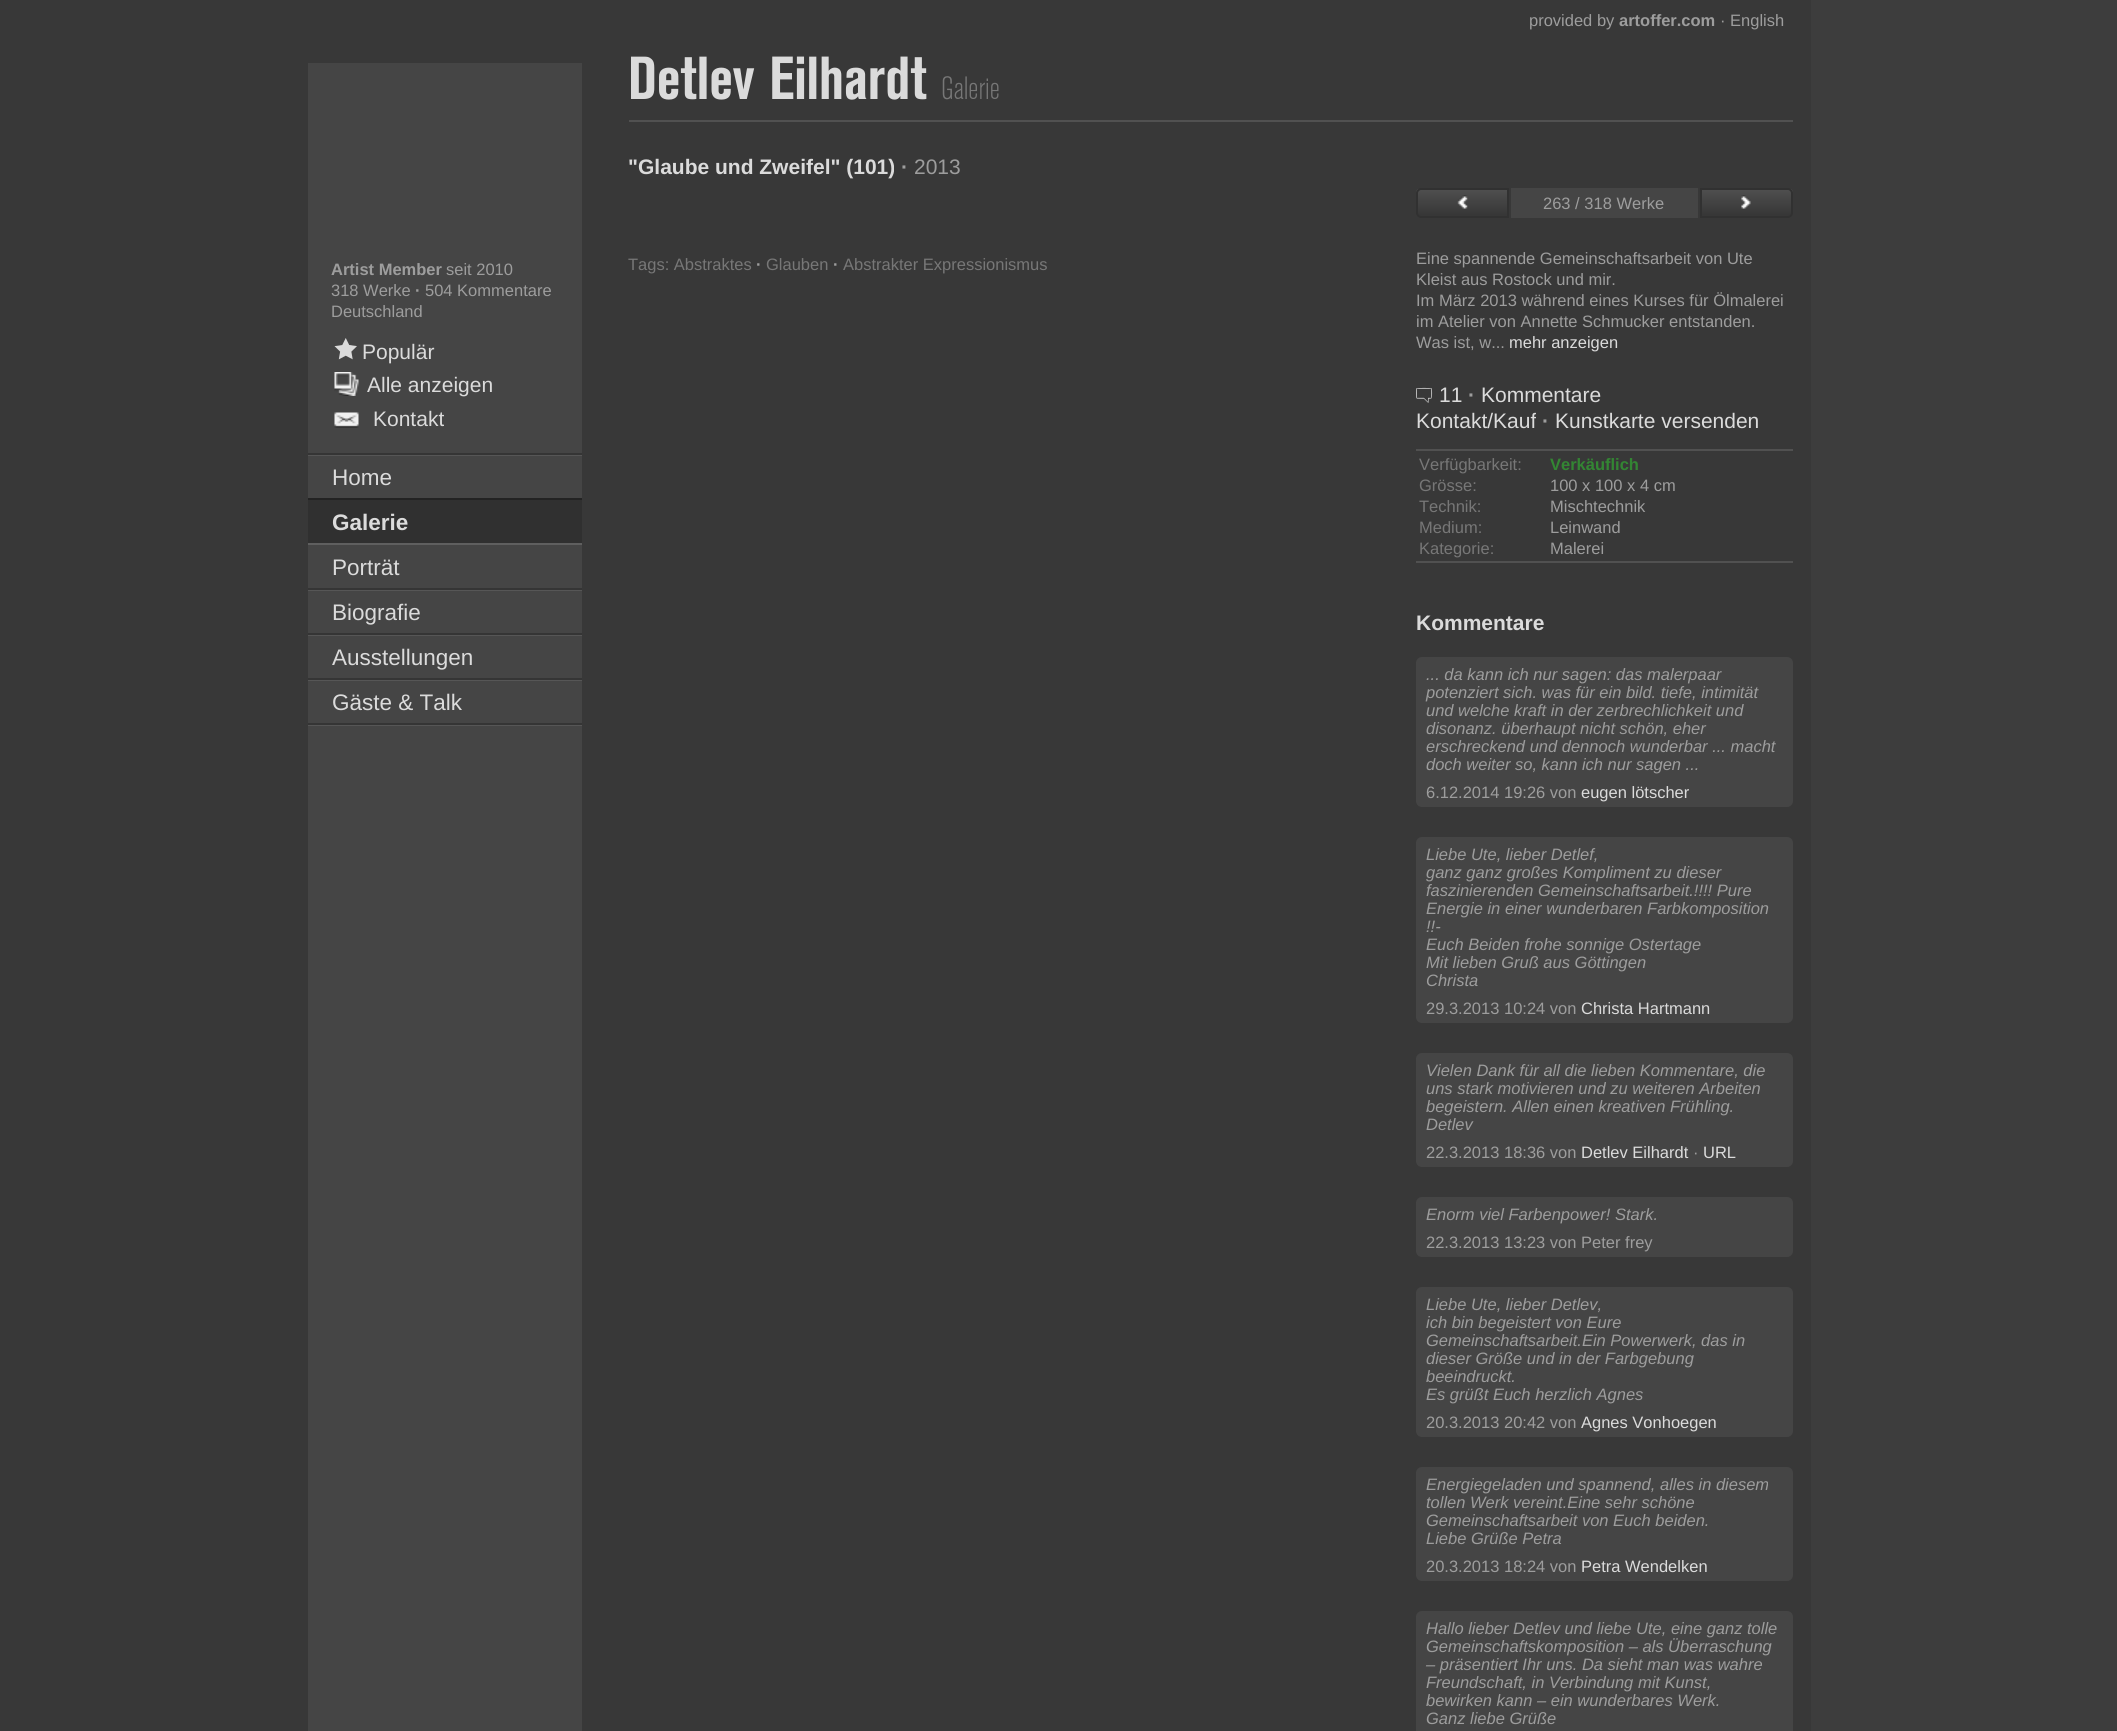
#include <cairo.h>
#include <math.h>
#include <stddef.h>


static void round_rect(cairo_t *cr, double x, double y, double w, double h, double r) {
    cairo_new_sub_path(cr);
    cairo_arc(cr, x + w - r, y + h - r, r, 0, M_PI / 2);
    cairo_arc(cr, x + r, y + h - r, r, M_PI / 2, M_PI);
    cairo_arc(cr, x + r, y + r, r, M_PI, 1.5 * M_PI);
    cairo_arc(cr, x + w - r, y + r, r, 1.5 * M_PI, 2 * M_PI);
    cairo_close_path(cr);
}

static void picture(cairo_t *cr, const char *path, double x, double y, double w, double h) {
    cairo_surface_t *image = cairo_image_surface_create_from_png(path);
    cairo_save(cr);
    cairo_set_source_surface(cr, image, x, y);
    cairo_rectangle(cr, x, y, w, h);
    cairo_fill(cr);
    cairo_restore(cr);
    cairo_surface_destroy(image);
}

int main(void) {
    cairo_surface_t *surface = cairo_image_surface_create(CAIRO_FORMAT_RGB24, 2117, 1731);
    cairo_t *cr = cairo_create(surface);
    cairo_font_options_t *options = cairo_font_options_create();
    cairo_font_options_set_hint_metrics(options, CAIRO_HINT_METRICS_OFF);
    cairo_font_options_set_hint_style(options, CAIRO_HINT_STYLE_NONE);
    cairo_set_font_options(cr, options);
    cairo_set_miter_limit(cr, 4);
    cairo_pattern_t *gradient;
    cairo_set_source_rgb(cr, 0.22, 0.22, 0.22);
    cairo_paint(cr);
    cairo_set_source_rgb(cr, 0.239, 0.239, 0.239);
    cairo_rectangle(cr, 1811, 0, 306, 1731);
    cairo_fill(cr);
    cairo_set_source_rgb(cr, 0.271, 0.271, 0.271);
    cairo_rectangle(cr, 308, 63, 274, 1668);
    cairo_fill(cr);
    cairo_select_font_face(cr, "Liberation Sans", CAIRO_FONT_SLANT_NORMAL, CAIRO_FONT_WEIGHT_BOLD);
    cairo_set_font_size(cr, 16.5);
    cairo_set_source_rgb(cr, 0.616, 0.616, 0.616);
    cairo_move_to(cr, 331, 275);
    cairo_show_text(cr, "Artist Member");
    cairo_select_font_face(cr, "Liberation Sans", CAIRO_FONT_SLANT_NORMAL, CAIRO_FONT_WEIGHT_NORMAL);
    cairo_move_to(cr, 446, 275);
    cairo_show_text(cr, "seit 2010");
    cairo_move_to(cr, 331, 296);
    cairo_show_text(cr, "318 Werke");
    cairo_select_font_face(cr, "Liberation Sans", CAIRO_FONT_SLANT_NORMAL, CAIRO_FONT_WEIGHT_BOLD);
    cairo_move_to(cr, 415, 296);
    cairo_show_text(cr, "·");
    cairo_select_font_face(cr, "Liberation Sans", CAIRO_FONT_SLANT_NORMAL, CAIRO_FONT_WEIGHT_NORMAL);
    cairo_move_to(cr, 425, 296);
    cairo_show_text(cr, "504 Kommentare");
    cairo_move_to(cr, 331, 317);
    cairo_show_text(cr, "Deutschland");
    cairo_set_source_rgb(cr, 0.337, 0.337, 0.337);
    cairo_rectangle(cr, 308, 455, 274, 1);
    cairo_fill(cr);
    cairo_set_source_rgb(cr, 0.208, 0.208, 0.208);
    cairo_rectangle(cr, 308, 453, 274, 2);
    cairo_fill(cr);
    picture(cr, "img1.png", 334, 338, 23, 22);
    cairo_set_font_size(cr, 21);
    cairo_set_source_rgb(cr, 0.859, 0.859, 0.859);
    cairo_move_to(cr, 362, 359);
    cairo_show_text(cr, "Populär");
    picture(cr, "img2.png", 334, 372, 25, 24);
    cairo_move_to(cr, 367, 392);
    cairo_show_text(cr, "Alle anzeigen");
    picture(cr, "img3.png", 334, 412, 25, 16);
    cairo_move_to(cr, 373, 426);
    cairo_show_text(cr, "Kontakt");
    cairo_set_font_size(cr, 22.5);
    cairo_move_to(cr, 332, 485);
    cairo_show_text(cr, "Home");
    cairo_set_source_rgb(cr, 0.137, 0.137, 0.137);
    cairo_rectangle(cr, 308, 498, 274, 2);
    cairo_fill(cr);
    cairo_set_source_rgb(cr, 0.188, 0.188, 0.188);
    cairo_rectangle(cr, 308, 500, 274, 43);
    cairo_fill(cr);
    cairo_set_source_rgb(cr, 0.373, 0.373, 0.373);
    cairo_rectangle(cr, 308, 543, 274, 2);
    cairo_fill(cr);
    cairo_select_font_face(cr, "Liberation Sans", CAIRO_FONT_SLANT_NORMAL, CAIRO_FONT_WEIGHT_BOLD);
    cairo_set_source_rgb(cr, 0.859, 0.859, 0.859);
    cairo_move_to(cr, 332, 530);
    cairo_show_text(cr, "Galerie");
    cairo_set_source_rgb(cr, 0.337, 0.337, 0.337);
    cairo_rectangle(cr, 308, 590, 274, 1);
    cairo_fill(cr);
    cairo_set_source_rgb(cr, 0.208, 0.208, 0.208);
    cairo_rectangle(cr, 308, 588, 274, 2);
    cairo_fill(cr);
    cairo_select_font_face(cr, "Liberation Sans", CAIRO_FONT_SLANT_NORMAL, CAIRO_FONT_WEIGHT_NORMAL);
    cairo_set_source_rgb(cr, 0.859, 0.859, 0.859);
    cairo_move_to(cr, 332, 575);
    cairo_show_text(cr, "Porträt");
    cairo_set_source_rgb(cr, 0.337, 0.337, 0.337);
    cairo_rectangle(cr, 308, 635, 274, 1);
    cairo_fill(cr);
    cairo_set_source_rgb(cr, 0.208, 0.208, 0.208);
    cairo_rectangle(cr, 308, 633, 274, 2);
    cairo_fill(cr);
    cairo_set_source_rgb(cr, 0.859, 0.859, 0.859);
    cairo_move_to(cr, 332, 620);
    cairo_show_text(cr, "Biografie");
    cairo_set_source_rgb(cr, 0.337, 0.337, 0.337);
    cairo_rectangle(cr, 308, 680, 274, 1);
    cairo_fill(cr);
    cairo_set_source_rgb(cr, 0.208, 0.208, 0.208);
    cairo_rectangle(cr, 308, 678, 274, 2);
    cairo_fill(cr);
    cairo_set_source_rgb(cr, 0.859, 0.859, 0.859);
    cairo_move_to(cr, 332, 665);
    cairo_show_text(cr, "Ausstellungen");
    cairo_set_source_rgb(cr, 0.337, 0.337, 0.337);
    cairo_rectangle(cr, 308, 725, 274, 1);
    cairo_fill(cr);
    cairo_set_source_rgb(cr, 0.208, 0.208, 0.208);
    cairo_rectangle(cr, 308, 723, 274, 2);
    cairo_fill(cr);
    cairo_set_source_rgb(cr, 0.859, 0.859, 0.859);
    cairo_move_to(cr, 332, 710);
    cairo_show_text(cr, "Gäste & Talk");
    cairo_set_font_size(cr, 16.5);
    cairo_set_source_rgb(cr, 0.616, 0.616, 0.616);
    cairo_move_to(cr, 1529, 26);
    cairo_show_text(cr, "provided by");
    cairo_select_font_face(cr, "Liberation Sans", CAIRO_FONT_SLANT_NORMAL, CAIRO_FONT_WEIGHT_BOLD);
    cairo_move_to(cr, 1619, 26);
    cairo_show_text(cr, "artoffer.com");
    cairo_select_font_face(cr, "Liberation Sans", CAIRO_FONT_SLANT_NORMAL, CAIRO_FONT_WEIGHT_NORMAL);
    cairo_move_to(cr, 1720, 26);
    cairo_show_text(cr, "· English");
    cairo_select_font_face(cr, "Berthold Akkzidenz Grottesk", CAIRO_FONT_SLANT_NORMAL, CAIRO_FONT_WEIGHT_BOLD);
    cairo_set_font_size(cr, 60);
    cairo_set_source_rgb(cr, 0.859, 0.859, 0.859);
    cairo_move_to(cr, 628, 99);
    cairo_show_text(cr, "Detlev Eilhardt");
    cairo_select_font_face(cr, "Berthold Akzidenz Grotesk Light", CAIRO_FONT_SLANT_NORMAL, CAIRO_FONT_WEIGHT_NORMAL);
    cairo_set_font_size(cr, 32);
    cairo_set_source_rgb(cr, 0.467, 0.467, 0.467);
    cairo_move_to(cr, 941, 99);
    cairo_show_text(cr, "Galerie");
    cairo_set_source_rgb(cr, 0.318, 0.318, 0.318);
    cairo_rectangle(cr, 629, 120, 1164, 2);
    cairo_fill(cr);
    cairo_select_font_face(cr, "Liberation Sans", CAIRO_FONT_SLANT_NORMAL, CAIRO_FONT_WEIGHT_BOLD);
    cairo_set_font_size(cr, 21);
    cairo_set_source_rgb(cr, 0.859, 0.859, 0.859);
    cairo_move_to(cr, 628, 174);
    cairo_show_text(cr, "\"Glaube und Zweifel\" (101)");
    cairo_set_source_rgb(cr, 0.616, 0.616, 0.616);
    cairo_move_to(cr, 901, 174);
    cairo_show_text(cr, "·");
    cairo_select_font_face(cr, "Liberation Sans", CAIRO_FONT_SLANT_NORMAL, CAIRO_FONT_WEIGHT_NORMAL);
    cairo_move_to(cr, 914, 174);
    cairo_show_text(cr, "2013");
    cairo_set_font_size(cr, 16.5);
    cairo_set_source_rgb(cr, 0.467, 0.467, 0.467);
    cairo_move_to(cr, 628, 270);
    cairo_show_text(cr, "Tags: Abstraktes");
    cairo_select_font_face(cr, "Liberation Sans", CAIRO_FONT_SLANT_NORMAL, CAIRO_FONT_WEIGHT_BOLD);
    cairo_set_source_rgb(cr, 0.616, 0.616, 0.616);
    cairo_move_to(cr, 756, 270);
    cairo_show_text(cr, "·");
    cairo_select_font_face(cr, "Liberation Sans", CAIRO_FONT_SLANT_NORMAL, CAIRO_FONT_WEIGHT_NORMAL);
    cairo_set_source_rgb(cr, 0.467, 0.467, 0.467);
    cairo_move_to(cr, 766, 270);
    cairo_show_text(cr, "Glauben");
    cairo_select_font_face(cr, "Liberation Sans", CAIRO_FONT_SLANT_NORMAL, CAIRO_FONT_WEIGHT_BOLD);
    cairo_set_source_rgb(cr, 0.616, 0.616, 0.616);
    cairo_move_to(cr, 833, 270);
    cairo_show_text(cr, "·");
    cairo_select_font_face(cr, "Liberation Sans", CAIRO_FONT_SLANT_NORMAL, CAIRO_FONT_WEIGHT_NORMAL);
    cairo_set_source_rgb(cr, 0.467, 0.467, 0.467);
    cairo_move_to(cr, 843, 270);
    cairo_show_text(cr, "Abstrakter Expressionismus");
    cairo_save(cr);
    cairo_new_path(cr);
    cairo_move_to(cr, 1421, 188);
    cairo_line_to(cr, 1509, 188);
    cairo_line_to(cr, 1509, 218);
    cairo_line_to(cr, 1421, 218);
    cairo_curve_to(cr, 1418, 218, 1416, 216, 1416, 213);
    cairo_line_to(cr, 1416, 193);
    cairo_curve_to(cr, 1416, 190, 1418, 188, 1421, 188);
    cairo_close_path(cr);
    cairo_clip(cr);
    gradient = cairo_pattern_create_linear(1463, 189, 1463, 216);
    cairo_pattern_add_color_stop_rgba(gradient, 0, 0.31, 0.31, 0.31, 1);
    cairo_pattern_add_color_stop_rgba(gradient, 1, 0.212, 0.212, 0.212, 1);
    cairo_set_source(cr, gradient);
    cairo_pattern_destroy(gradient);
    cairo_rectangle(cr, 1416, 189, 91, 27);
    cairo_fill(cr);
    cairo_restore(cr);
    cairo_new_path(cr);
    cairo_move_to(cr, 1421, 189);
    cairo_line_to(cr, 1508, 189);
    cairo_line_to(cr, 1508, 217);
    cairo_line_to(cr, 1421, 217);
    cairo_curve_to(cr, 1419, 217, 1417, 215, 1417, 213);
    cairo_line_to(cr, 1417, 193);
    cairo_curve_to(cr, 1417, 191, 1419, 189, 1421, 189);
    cairo_close_path(cr);
    cairo_set_source_rgb(cr, 0.192, 0.192, 0.192);
    cairo_stroke(cr);
    picture(cr, "img4.png", 1457, 195, 11, 14);
    cairo_set_source_rgb(cr, 0.271, 0.271, 0.271);
    cairo_rectangle(cr, 1511, 188, 187, 30);
    cairo_fill(cr);
    cairo_set_source_rgb(cr, 0.616, 0.616, 0.616);
    cairo_move_to(cr, 1543, 209);
    cairo_show_text(cr, "263 / 318 Werke");
    cairo_save(cr);
    cairo_new_path(cr);
    cairo_move_to(cr, 1700, 188);
    cairo_line_to(cr, 1788, 188);
    cairo_curve_to(cr, 1791, 188, 1793, 190, 1793, 193);
    cairo_line_to(cr, 1793, 213);
    cairo_curve_to(cr, 1793, 216, 1791, 218, 1788, 218);
    cairo_line_to(cr, 1700, 218);
    cairo_close_path(cr);
    cairo_clip(cr);
    gradient = cairo_pattern_create_linear(1746, 189, 1746, 216);
    cairo_pattern_add_color_stop_rgba(gradient, 0, 0.31, 0.31, 0.31, 1);
    cairo_pattern_add_color_stop_rgba(gradient, 1, 0.212, 0.212, 0.212, 1);
    cairo_set_source(cr, gradient);
    cairo_pattern_destroy(gradient);
    cairo_rectangle(cr, 1702, 189, 91, 27);
    cairo_fill(cr);
    cairo_restore(cr);
    cairo_new_path(cr);
    cairo_move_to(cr, 1701, 189);
    cairo_line_to(cr, 1788, 189);
    cairo_curve_to(cr, 1790, 189, 1792, 191, 1792, 193);
    cairo_line_to(cr, 1792, 213);
    cairo_curve_to(cr, 1792, 215, 1790, 217, 1788, 217);
    cairo_line_to(cr, 1701, 217);
    cairo_close_path(cr);
    cairo_set_source_rgb(cr, 0.192, 0.192, 0.192);
    cairo_stroke(cr);
    picture(cr, "img5.png", 1741, 195, 10, 14);
    cairo_set_source_rgb(cr, 0.616, 0.616, 0.616);
    cairo_move_to(cr, 1416, 264);
    cairo_show_text(cr, "Eine spannende Gemeinschaftsarbeit von Ute");
    cairo_move_to(cr, 1416, 285);
    cairo_show_text(cr, "Kleist aus Rostock und mir.");
    cairo_move_to(cr, 1416, 306);
    cairo_show_text(cr, "Im März 2013 während eines Kurses für Ölmalerei");
    cairo_move_to(cr, 1416, 327);
    cairo_show_text(cr, "im Atelier von Annette Schmucker entstanden.");
    cairo_move_to(cr, 1416, 348);
    cairo_show_text(cr, "Was ist, w...");
    cairo_set_source_rgb(cr, 0.859, 0.859, 0.859);
    cairo_move_to(cr, 1509, 348);
    cairo_show_text(cr, "mehr anzeigen");
    picture(cr, "img6.png", 1416, 387, 17, 16);
    cairo_set_font_size(cr, 21);
    cairo_move_to(cr, 1439, 402);
    cairo_show_text(cr, "11");
    cairo_select_font_face(cr, "Liberation Sans", CAIRO_FONT_SLANT_NORMAL, CAIRO_FONT_WEIGHT_BOLD);
    cairo_set_source_rgb(cr, 0.616, 0.616, 0.616);
    cairo_move_to(cr, 1468, 402);
    cairo_show_text(cr, "·");
    cairo_select_font_face(cr, "Liberation Sans", CAIRO_FONT_SLANT_NORMAL, CAIRO_FONT_WEIGHT_NORMAL);
    cairo_set_source_rgb(cr, 0.859, 0.859, 0.859);
    cairo_move_to(cr, 1481, 402);
    cairo_show_text(cr, "Kommentare");
    cairo_move_to(cr, 1416, 428);
    cairo_show_text(cr, "Kontakt/Kauf");
    cairo_select_font_face(cr, "Liberation Sans", CAIRO_FONT_SLANT_NORMAL, CAIRO_FONT_WEIGHT_BOLD);
    cairo_set_source_rgb(cr, 0.616, 0.616, 0.616);
    cairo_move_to(cr, 1542, 428);
    cairo_show_text(cr, "·");
    cairo_select_font_face(cr, "Liberation Sans", CAIRO_FONT_SLANT_NORMAL, CAIRO_FONT_WEIGHT_NORMAL);
    cairo_set_source_rgb(cr, 0.859, 0.859, 0.859);
    cairo_move_to(cr, 1555, 428);
    cairo_show_text(cr, "Kunstkarte versenden");
    cairo_set_source_rgb(cr, 0.318, 0.318, 0.318);
    cairo_rectangle(cr, 1416, 449, 377, 2);
    cairo_fill(cr);
    cairo_rectangle(cr, 1416, 561, 377, 2);
    cairo_fill(cr);
    cairo_set_font_size(cr, 16.5);
    cairo_set_source_rgb(cr, 0.467, 0.467, 0.467);
    cairo_move_to(cr, 1419, 470);
    cairo_show_text(cr, "Verfügbarkeit:");
    cairo_select_font_face(cr, "Liberation Sans", CAIRO_FONT_SLANT_NORMAL, CAIRO_FONT_WEIGHT_BOLD);
    cairo_set_source_rgb(cr, 0.2, 0.525, 0.2);
    cairo_move_to(cr, 1550, 470);
    cairo_show_text(cr, "Verkäuflich");
    cairo_select_font_face(cr, "Liberation Sans", CAIRO_FONT_SLANT_NORMAL, CAIRO_FONT_WEIGHT_NORMAL);
    cairo_set_source_rgb(cr, 0.467, 0.467, 0.467);
    cairo_move_to(cr, 1419, 491);
    cairo_show_text(cr, "Grösse:");
    cairo_set_source_rgb(cr, 0.616, 0.616, 0.616);
    cairo_move_to(cr, 1550, 491);
    cairo_show_text(cr, "100 x 100 x 4 cm");
    cairo_set_source_rgb(cr, 0.467, 0.467, 0.467);
    cairo_move_to(cr, 1419, 512);
    cairo_show_text(cr, "Technik:");
    cairo_set_source_rgb(cr, 0.616, 0.616, 0.616);
    cairo_move_to(cr, 1550, 512);
    cairo_show_text(cr, "Mischtechnik");
    cairo_set_source_rgb(cr, 0.467, 0.467, 0.467);
    cairo_move_to(cr, 1419, 533);
    cairo_show_text(cr, "Medium:");
    cairo_set_source_rgb(cr, 0.616, 0.616, 0.616);
    cairo_move_to(cr, 1550, 533);
    cairo_show_text(cr, "Leinwand");
    cairo_set_source_rgb(cr, 0.467, 0.467, 0.467);
    cairo_move_to(cr, 1419, 554);
    cairo_show_text(cr, "Kategorie:");
    cairo_set_source_rgb(cr, 0.616, 0.616, 0.616);
    cairo_move_to(cr, 1550, 554);
    cairo_show_text(cr, "Malerei");
    cairo_select_font_face(cr, "Liberation Sans", CAIRO_FONT_SLANT_NORMAL, CAIRO_FONT_WEIGHT_BOLD);
    cairo_set_font_size(cr, 21);
    cairo_set_source_rgb(cr, 0.859, 0.859, 0.859);
    cairo_move_to(cr, 1416, 630);
    cairo_show_text(cr, "Kommentare");
    cairo_set_source_rgb(cr, 0.271, 0.271, 0.271);
    round_rect(cr, 1417, 658, 375, 148, 5);
    cairo_fill_preserve(cr);
    cairo_stroke(cr);
    cairo_select_font_face(cr, "Liberation Sans", CAIRO_FONT_SLANT_ITALIC, CAIRO_FONT_WEIGHT_NORMAL);
    cairo_set_font_size(cr, 16.5);
    cairo_set_source_rgb(cr, 0.616, 0.616, 0.616);
    cairo_move_to(cr, 1426, 680);
    cairo_show_text(cr, "... da kann ich nur sagen: das malerpaar");
    cairo_move_to(cr, 1426, 698);
    cairo_show_text(cr, "potenziert sich. was für ein bild. tiefe, intimität");
    cairo_move_to(cr, 1426, 716);
    cairo_show_text(cr, "und welche kraft in der zerbrechlichkeit und");
    cairo_move_to(cr, 1426, 734);
    cairo_show_text(cr, "disonanz. überhaupt nicht schön, eher");
    cairo_move_to(cr, 1426, 752);
    cairo_show_text(cr, "erschreckend und dennoch wunderbar ... macht");
    cairo_move_to(cr, 1426, 770);
    cairo_show_text(cr, "doch weiter so, kann ich nur sagen ...");
    cairo_select_font_face(cr, "Liberation Sans", CAIRO_FONT_SLANT_NORMAL, CAIRO_FONT_WEIGHT_NORMAL);
    cairo_move_to(cr, 1426, 798);
    cairo_show_text(cr, "6.12.2014 19:26 von");
    cairo_set_source_rgb(cr, 0.859, 0.859, 0.859);
    cairo_move_to(cr, 1581, 798);
    cairo_show_text(cr, "eugen lötscher");
    cairo_set_source_rgb(cr, 0.271, 0.271, 0.271);
    round_rect(cr, 1417, 838, 375, 184, 5);
    cairo_fill_preserve(cr);
    cairo_stroke(cr);
    cairo_select_font_face(cr, "Liberation Sans", CAIRO_FONT_SLANT_ITALIC, CAIRO_FONT_WEIGHT_NORMAL);
    cairo_set_source_rgb(cr, 0.616, 0.616, 0.616);
    cairo_move_to(cr, 1426, 860);
    cairo_show_text(cr, "Liebe Ute, lieber Detlef,");
    cairo_move_to(cr, 1426, 878);
    cairo_show_text(cr, "ganz ganz großes Kompliment zu dieser");
    cairo_move_to(cr, 1426, 896);
    cairo_show_text(cr, "faszinierenden Gemeinschaftsarbeit.!!!! Pure");
    cairo_move_to(cr, 1426, 914);
    cairo_show_text(cr, "Energie in einer wunderbaren Farbkomposition");
    cairo_move_to(cr, 1426, 932);
    cairo_show_text(cr, "!!-");
    cairo_move_to(cr, 1426, 950);
    cairo_show_text(cr, "Euch Beiden frohe sonnige Ostertage");
    cairo_move_to(cr, 1426, 968);
    cairo_show_text(cr, "Mit lieben Gruß aus Göttingen");
    cairo_move_to(cr, 1426, 986);
    cairo_show_text(cr, "Christa");
    cairo_select_font_face(cr, "Liberation Sans", CAIRO_FONT_SLANT_NORMAL, CAIRO_FONT_WEIGHT_NORMAL);
    cairo_move_to(cr, 1426, 1014);
    cairo_show_text(cr, "29.3.2013 10:24 von");
    cairo_set_source_rgb(cr, 0.859, 0.859, 0.859);
    cairo_move_to(cr, 1581, 1014);
    cairo_show_text(cr, "Christa Hartmann");
    cairo_set_source_rgb(cr, 0.271, 0.271, 0.271);
    round_rect(cr, 1417, 1054, 375, 112, 5);
    cairo_fill_preserve(cr);
    cairo_stroke(cr);
    cairo_select_font_face(cr, "Liberation Sans", CAIRO_FONT_SLANT_ITALIC, CAIRO_FONT_WEIGHT_NORMAL);
    cairo_set_source_rgb(cr, 0.616, 0.616, 0.616);
    cairo_move_to(cr, 1426, 1076);
    cairo_show_text(cr, "Vielen Dank für all die lieben Kommentare, die");
    cairo_move_to(cr, 1426, 1094);
    cairo_show_text(cr, "uns stark motivieren und zu weiteren Arbeiten");
    cairo_move_to(cr, 1426, 1112);
    cairo_show_text(cr, "begeistern. Allen einen kreativen Frühling.");
    cairo_move_to(cr, 1426, 1130);
    cairo_show_text(cr, "Detlev");
    cairo_select_font_face(cr, "Liberation Sans", CAIRO_FONT_SLANT_NORMAL, CAIRO_FONT_WEIGHT_NORMAL);
    cairo_move_to(cr, 1426, 1158);
    cairo_show_text(cr, "22.3.2013 18:36 von");
    cairo_set_source_rgb(cr, 0.859, 0.859, 0.859);
    cairo_move_to(cr, 1581, 1158);
    cairo_show_text(cr, "Detlev Eilhardt");
    cairo_set_source_rgb(cr, 0.616, 0.616, 0.616);
    cairo_move_to(cr, 1693, 1158);
    cairo_show_text(cr, "·");
    cairo_set_source_rgb(cr, 0.859, 0.859, 0.859);
    cairo_move_to(cr, 1703, 1158);
    cairo_show_text(cr, "URL");
    cairo_set_source_rgb(cr, 0.271, 0.271, 0.271);
    round_rect(cr, 1417, 1198, 375, 58, 5);
    cairo_fill_preserve(cr);
    cairo_stroke(cr);
    cairo_select_font_face(cr, "Liberation Sans", CAIRO_FONT_SLANT_ITALIC, CAIRO_FONT_WEIGHT_NORMAL);
    cairo_set_source_rgb(cr, 0.616, 0.616, 0.616);
    cairo_move_to(cr, 1426, 1220);
    cairo_show_text(cr, "Enorm viel Farbenpower! Stark.");
    cairo_select_font_face(cr, "Liberation Sans", CAIRO_FONT_SLANT_NORMAL, CAIRO_FONT_WEIGHT_NORMAL);
    cairo_move_to(cr, 1426, 1248);
    cairo_show_text(cr, "22.3.2013 13:23 von Peter frey");
    cairo_set_source_rgb(cr, 0.271, 0.271, 0.271);
    round_rect(cr, 1417, 1288, 375, 148, 5);
    cairo_fill_preserve(cr);
    cairo_stroke(cr);
    cairo_select_font_face(cr, "Liberation Sans", CAIRO_FONT_SLANT_ITALIC, CAIRO_FONT_WEIGHT_NORMAL);
    cairo_set_source_rgb(cr, 0.616, 0.616, 0.616);
    cairo_move_to(cr, 1426, 1310);
    cairo_show_text(cr, "Liebe Ute, lieber Detlev,");
    cairo_move_to(cr, 1426, 1328);
    cairo_show_text(cr, "ich bin begeistert von Eure");
    cairo_move_to(cr, 1426, 1346);
    cairo_show_text(cr, "Gemeinschaftsarbeit.Ein Powerwerk, das in");
    cairo_move_to(cr, 1426, 1364);
    cairo_show_text(cr, "dieser Größe und in der Farbgebung");
    cairo_move_to(cr, 1426, 1382);
    cairo_show_text(cr, "beeindruckt.");
    cairo_move_to(cr, 1426, 1400);
    cairo_show_text(cr, "Es grüßt Euch herzlich Agnes");
    cairo_select_font_face(cr, "Liberation Sans", CAIRO_FONT_SLANT_NORMAL, CAIRO_FONT_WEIGHT_NORMAL);
    cairo_move_to(cr, 1426, 1428);
    cairo_show_text(cr, "20.3.2013 20:42 von");
    cairo_set_source_rgb(cr, 0.859, 0.859, 0.859);
    cairo_move_to(cr, 1581, 1428);
    cairo_show_text(cr, "Agnes Vonhoegen");
    cairo_set_source_rgb(cr, 0.271, 0.271, 0.271);
    round_rect(cr, 1417, 1468, 375, 112, 5);
    cairo_fill_preserve(cr);
    cairo_stroke(cr);
    cairo_select_font_face(cr, "Liberation Sans", CAIRO_FONT_SLANT_ITALIC, CAIRO_FONT_WEIGHT_NORMAL);
    cairo_set_source_rgb(cr, 0.616, 0.616, 0.616);
    cairo_move_to(cr, 1426, 1490);
    cairo_show_text(cr, "Energiegeladen und spannend, alles in diesem");
    cairo_move_to(cr, 1426, 1508);
    cairo_show_text(cr, "tollen Werk vereint.Eine sehr schöne");
    cairo_move_to(cr, 1426, 1526);
    cairo_show_text(cr, "Gemeinschaftsarbeit von Euch beiden.");
    cairo_move_to(cr, 1426, 1544);
    cairo_show_text(cr, "Liebe Grüße Petra");
    cairo_select_font_face(cr, "Liberation Sans", CAIRO_FONT_SLANT_NORMAL, CAIRO_FONT_WEIGHT_NORMAL);
    cairo_move_to(cr, 1426, 1572);
    cairo_show_text(cr, "20.3.2013 18:24 von");
    cairo_set_source_rgb(cr, 0.859, 0.859, 0.859);
    cairo_move_to(cr, 1581, 1572);
    cairo_show_text(cr, "Petra Wendelken");
    cairo_set_source_rgb(cr, 0.271, 0.271, 0.271);
    round_rect(cr, 1417, 1612, 375, 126, 5);
    cairo_fill_preserve(cr);
    cairo_stroke(cr);
    cairo_select_font_face(cr, "Liberation Sans", CAIRO_FONT_SLANT_ITALIC, CAIRO_FONT_WEIGHT_NORMAL);
    cairo_set_source_rgb(cr, 0.616, 0.616, 0.616);
    cairo_move_to(cr, 1426, 1634);
    cairo_show_text(cr, "Hallo lieber Detlev und liebe Ute, eine ganz tolle");
    cairo_move_to(cr, 1426, 1652);
    cairo_show_text(cr, "Gemeinschaftskomposition – als Überraschung");
    cairo_move_to(cr, 1426, 1670);
    cairo_show_text(cr, "– präsentiert Ihr uns. Da sieht man was wahre");
    cairo_move_to(cr, 1426, 1688);
    cairo_show_text(cr, "Freundschaft, in Verbindung mit Kunst,");
    cairo_move_to(cr, 1426, 1706);
    cairo_show_text(cr, "bewirken kann – ein wunderbares Werk.");
    cairo_move_to(cr, 1426, 1724);
    cairo_show_text(cr, "Ganz liebe Grüße");
    cairo_surface_write_to_png(surface, "page.png");
    cairo_font_options_destroy(options);
    cairo_destroy(cr);
    cairo_surface_destroy(surface);
    return 0;
}
